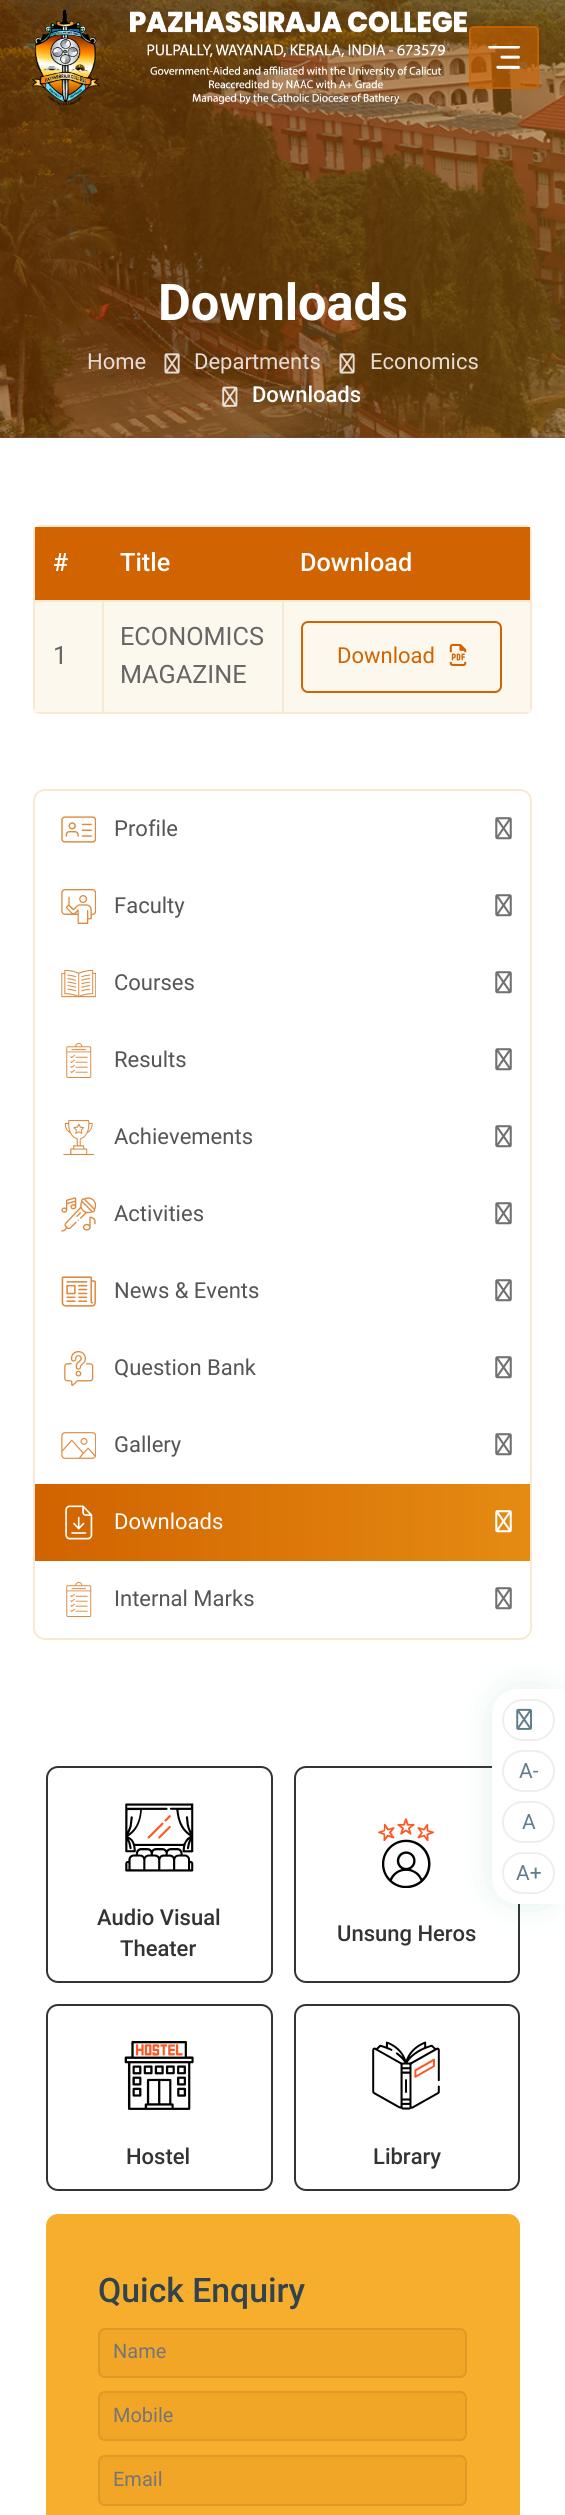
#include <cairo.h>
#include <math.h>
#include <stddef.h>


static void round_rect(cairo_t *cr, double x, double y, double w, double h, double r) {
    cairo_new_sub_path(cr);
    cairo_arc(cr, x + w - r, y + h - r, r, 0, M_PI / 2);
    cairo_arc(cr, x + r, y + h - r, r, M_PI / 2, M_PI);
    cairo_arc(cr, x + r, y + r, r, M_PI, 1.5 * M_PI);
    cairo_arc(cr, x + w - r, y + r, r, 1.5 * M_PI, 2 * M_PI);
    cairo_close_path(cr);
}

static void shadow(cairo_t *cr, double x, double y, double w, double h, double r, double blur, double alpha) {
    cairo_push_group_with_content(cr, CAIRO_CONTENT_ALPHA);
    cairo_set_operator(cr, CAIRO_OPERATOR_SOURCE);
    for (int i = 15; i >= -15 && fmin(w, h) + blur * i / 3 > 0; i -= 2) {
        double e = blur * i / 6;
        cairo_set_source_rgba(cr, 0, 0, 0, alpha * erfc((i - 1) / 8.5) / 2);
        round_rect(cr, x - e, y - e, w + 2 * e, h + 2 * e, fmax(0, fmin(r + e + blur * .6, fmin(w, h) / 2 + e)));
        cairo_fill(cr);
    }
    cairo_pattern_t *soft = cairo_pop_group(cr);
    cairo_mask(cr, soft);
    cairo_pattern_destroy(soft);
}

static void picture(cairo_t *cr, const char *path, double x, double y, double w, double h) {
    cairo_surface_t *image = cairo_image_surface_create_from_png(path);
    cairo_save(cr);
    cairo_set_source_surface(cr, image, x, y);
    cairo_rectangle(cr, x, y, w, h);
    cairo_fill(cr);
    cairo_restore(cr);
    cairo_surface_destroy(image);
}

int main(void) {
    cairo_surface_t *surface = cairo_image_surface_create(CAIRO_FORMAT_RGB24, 565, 2515);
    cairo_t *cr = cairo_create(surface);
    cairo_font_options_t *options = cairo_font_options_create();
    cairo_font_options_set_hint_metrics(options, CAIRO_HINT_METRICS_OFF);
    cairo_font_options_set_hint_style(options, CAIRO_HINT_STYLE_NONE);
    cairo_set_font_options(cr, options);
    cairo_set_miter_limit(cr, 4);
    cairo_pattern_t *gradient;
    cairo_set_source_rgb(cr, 1, 1, 1);
    cairo_paint(cr);
    cairo_set_source_rgb(cr, 0.322, 0.18, 0.573);
    cairo_rectangle(cr, 0, 437, 565, 1);
    cairo_fill(cr);
    picture(cr, "img3.png", 0, 0, 565, 438);
    gradient = cairo_pattern_create_linear(0, 219, 565, 219);
    cairo_pattern_add_color_stop_rgba(gradient, 0, 0.655, 0.31, 0, 0.5);
    cairo_pattern_add_color_stop_rgba(gradient, 1, 0.718, 0.435, 0.055, 0.5);
    cairo_set_source(cr, gradient);
    cairo_pattern_destroy(gradient);
    cairo_rectangle(cr, 0, 0, 565, 438);
    cairo_fill(cr);
    picture(cr, "img1.png", 32, 9, 435, 97);
    cairo_set_source_rgba(cr, 0.82, 0.392, 0, 0.57);
    round_rect(cr, 469, 26, 70, 63, 5);
    cairo_fill(cr);
    round_rect(cr, 470, 27, 68, 61, 4);
    cairo_set_source_rgba(cr, 0.824, 0.396, 0.004, 0.7);
    cairo_stroke(cr);
    picture(cr, "img2.png", 488, 46, 32, 23);
    cairo_select_font_face(cr, "Roboto", CAIRO_FONT_SLANT_NORMAL, CAIRO_FONT_WEIGHT_BOLD);
    cairo_set_font_size(cr, 50.5);
    cairo_set_source_rgb(cr, 1, 1, 1);
    cairo_move_to(cr, 158, 320);
    cairo_show_text(cr, "Downloads");
    cairo_select_font_face(cr, "Roboto", CAIRO_FONT_SLANT_NORMAL, CAIRO_FONT_WEIGHT_NORMAL);
    cairo_set_font_size(cr, 22);
    cairo_set_source_rgb(cr, 0.898, 0.867, 0.835);
    cairo_move_to(cr, 87, 369);
    cairo_show_text(cr, "Home");
    picture(cr, "img4.png", 164, 353, 16, 21);
    cairo_move_to(cr, 194, 369);
    cairo_show_text(cr, "Departments");
    picture(cr, "img5.png", 339, 353, 16, 21);
    cairo_move_to(cr, 370, 369);
    cairo_show_text(cr, "Economics");
    picture(cr, "img6.png", 222, 386, 16, 21);
    cairo_select_font_face(cr, "Roboto Medium", CAIRO_FONT_SLANT_NORMAL, CAIRO_FONT_WEIGHT_NORMAL);
    cairo_set_source_rgb(cr, 1, 1, 1);
    cairo_move_to(cr, 252, 402);
    cairo_show_text(cr, "Downloads");
    cairo_save(cr);
    round_rect(cr, 33, 525, 499, 189, 7);
    cairo_clip(cr);
    cairo_set_source_rgb(cr, 0.98, 0.914, 0.824);
    cairo_rectangle(cr, 282, 525, 250, 2);
    cairo_fill(cr);
    cairo_restore(cr);
    cairo_set_source_rgb(cr, 0.98, 0.914, 0.824);
    cairo_rectangle(cr, 102, 525, 182, 2);
    cairo_fill(cr);
    cairo_rectangle(cr, 282, 600, 250, 2);
    cairo_fill(cr);
    cairo_set_source_rgb(cr, 0.992, 0.969, 0.933);
    cairo_rectangle(cr, 35, 602, 495, 110);
    cairo_fill(cr);
    cairo_save(cr);
    round_rect(cr, 33, 525, 499, 189, 7);
    cairo_clip(cr);
    cairo_set_source_rgb(cr, 0.98, 0.914, 0.824);
    cairo_rectangle(cr, 530, 600, 2, 114);
    cairo_fill(cr);
    cairo_rectangle(cr, 282, 712, 250, 2);
    cairo_fill(cr);
    cairo_restore(cr);
    cairo_set_source_rgb(cr, 0.98, 0.914, 0.824);
    cairo_rectangle(cr, 282, 600, 2, 114);
    cairo_fill(cr);
    cairo_rectangle(cr, 102, 600, 182, 2);
    cairo_fill(cr);
    cairo_rectangle(cr, 102, 712, 182, 2);
    cairo_fill(cr);
    cairo_rectangle(cr, 102, 600, 2, 114);
    cairo_fill(cr);
    cairo_rectangle(cr, 33, 600, 70, 2);
    cairo_fill(cr);
    cairo_rectangle(cr, 102, 525, 2, 77);
    cairo_fill(cr);
    cairo_save(cr);
    round_rect(cr, 33, 525, 499, 189, 7);
    cairo_clip(cr);
    cairo_rectangle(cr, 33, 525, 70, 2);
    cairo_fill(cr);
    cairo_rectangle(cr, 33, 712, 70, 2);
    cairo_fill(cr);
    cairo_rectangle(cr, 33, 600, 2, 114);
    cairo_fill(cr);
    cairo_rectangle(cr, 33, 525, 2, 77);
    cairo_fill(cr);
    cairo_restore(cr);
    cairo_set_source_rgb(cr, 0.82, 0.388, 0);
    cairo_rectangle(cr, 35, 527, 495, 73);
    cairo_fill(cr);
    cairo_set_font_size(cr, 25.25);
    cairo_set_source_rgb(cr, 1, 1, 1);
    cairo_move_to(cr, 53, 571);
    cairo_show_text(cr, "#");
    cairo_move_to(cr, 120, 571);
    cairo_show_text(cr, "Title");
    cairo_save(cr);
    round_rect(cr, 33, 525, 499, 189, 7);
    cairo_clip(cr);
    cairo_set_source_rgb(cr, 0.98, 0.914, 0.824);
    cairo_rectangle(cr, 530, 525, 2, 77);
    cairo_fill(cr);
    cairo_restore(cr);
    cairo_move_to(cr, 300, 571);
    cairo_show_text(cr, "Download");
    cairo_select_font_face(cr, "Roboto", CAIRO_FONT_SLANT_NORMAL, CAIRO_FONT_WEIGHT_NORMAL);
    cairo_set_source_rgb(cr, 0.4, 0.4, 0.4);
    cairo_move_to(cr, 53, 664);
    cairo_show_text(cr, "1");
    cairo_move_to(cr, 120, 645);
    cairo_show_text(cr, "ECONOMICS");
    cairo_move_to(cr, 120, 683);
    cairo_show_text(cr, "MAGAZINE");
    round_rect(cr, 302, 622, 199, 70, 6);
    cairo_set_source_rgb(cr, 0.82, 0.392, 0);
    cairo_stroke(cr);
    cairo_set_font_size(cr, 22);
    cairo_move_to(cr, 337, 663);
    cairo_show_text(cr, "Download");
    picture(cr, "img7.png", 449, 643, 18, 23);
    round_rect(cr, 34, 790, 497, 849, 11);
    cairo_set_source_rgb(cr, 0.98, 0.914, 0.824);
    cairo_stroke(cr);
    picture(cr, "img8.png", 61, 816, 35, 27);
    cairo_set_source_rgb(cr, 0.333, 0.333, 0.333);
    cairo_move_to(cr, 114, 836);
    cairo_show_text(cr, "Profile");
    picture(cr, "img9.png", 495, 817, 17, 23);
    picture(cr, "img10.png", 61, 889, 35, 35);
    cairo_move_to(cr, 114, 913);
    cairo_show_text(cr, "Faculty");
    picture(cr, "img9.png", 495, 894, 17, 23);
    picture(cr, "img11.png", 61, 969, 35, 29);
    cairo_move_to(cr, 114, 990);
    cairo_show_text(cr, "Courses");
    picture(cr, "img9.png", 495, 971, 17, 23);
    picture(cr, "img12.png", 66, 1043, 26, 35);
    cairo_move_to(cr, 114, 1067);
    cairo_show_text(cr, "Results");
    picture(cr, "img9.png", 495, 1048, 17, 23);
    picture(cr, "img13.png", 63, 1120, 31, 35);
    cairo_move_to(cr, 114, 1144);
    cairo_show_text(cr, "Achievements");
    picture(cr, "img9.png", 495, 1125, 17, 23);
    picture(cr, "img14.png", 61, 1197, 35, 35);
    cairo_move_to(cr, 114, 1221);
    cairo_show_text(cr, "Activities");
    picture(cr, "img9.png", 495, 1202, 17, 23);
    picture(cr, "img15.png", 61, 1276, 35, 31);
    cairo_move_to(cr, 114, 1298);
    cairo_show_text(cr, "News & Events");
    picture(cr, "img9.png", 495, 1279, 17, 23);
    picture(cr, "img16.png", 64, 1351, 30, 35);
    cairo_move_to(cr, 114, 1375);
    cairo_show_text(cr, "Question Bank");
    picture(cr, "img9.png", 495, 1356, 17, 23);
    picture(cr, "img17.png", 61, 1432, 35, 27);
    cairo_move_to(cr, 114, 1452);
    cairo_show_text(cr, "Gallery");
    picture(cr, "img9.png", 495, 1433, 17, 23);
    gradient = cairo_pattern_create_linear(35, 1523, 530, 1523);
    cairo_pattern_add_color_stop_rgba(gradient, 0, 0.82, 0.388, 0, 1);
    cairo_pattern_add_color_stop_rgba(gradient, 1, 0.898, 0.545, 0.071, 1);
    cairo_set_source(cr, gradient);
    cairo_pattern_destroy(gradient);
    cairo_rectangle(cr, 35, 1484, 495, 77);
    cairo_fill(cr);
    picture(cr, "img18.png", 65, 1505, 28, 35);
    cairo_set_source_rgb(cr, 1, 1, 1);
    cairo_move_to(cr, 114, 1529);
    cairo_show_text(cr, "Downloads");
    picture(cr, "img19.png", 495, 1510, 17, 23);
    picture(cr, "img12.png", 66, 1582, 26, 35);
    cairo_set_source_rgb(cr, 0.333, 0.333, 0.333);
    cairo_move_to(cr, 114, 1606);
    cairo_show_text(cr, "Internal Marks");
    picture(cr, "img9.png", 495, 1587, 17, 23);
    round_rect(cr, 295, 1767, 224, 215, 11);
    cairo_set_source_rgb(cr, 0.2, 0.2, 0.2);
    cairo_stroke(cr);
    cairo_set_source_rgb(cr, 0.235, 0.624, 0.545);
    shadow(cr, 492, 1689, 73, 215, 26, 17.5, 0.15);
    cairo_set_source_rgb(cr, 1, 1, 1);
    cairo_new_path(cr);
    cairo_move_to(cr, 518, 1689);
    cairo_line_to(cr, 565, 1689);
    cairo_line_to(cr, 565, 1904);
    cairo_line_to(cr, 518, 1904);
    cairo_curve_to(cr, 503.5, 1904, 492, 1892.5, 492, 1878);
    cairo_line_to(cr, 492, 1715);
    cairo_curve_to(cr, 492, 1700.5, 503.5, 1689, 518, 1689);
    cairo_close_path(cr);
    cairo_fill(cr);
    round_rect(cr, 503, 1700, 51, 40, 20);
    cairo_set_source_rgb(cr, 0.933, 0.933, 0.933);
    cairo_stroke(cr);
    picture(cr, "img20.png", 516, 1708, 16, 22);
    round_rect(cr, 503, 1751, 51, 40, 20);
    cairo_stroke(cr);
    cairo_set_font_size(cr, 21);
    cairo_set_source_rgb(cr, 0.376, 0.49, 0.545);
    cairo_move_to(cr, 519, 1778);
    cairo_show_text(cr, "A-");
    round_rect(cr, 503, 1802, 51, 40, 20);
    cairo_set_source_rgb(cr, 0.933, 0.933, 0.933);
    cairo_stroke(cr);
    cairo_set_source_rgb(cr, 0.376, 0.49, 0.545);
    cairo_move_to(cr, 522, 1829);
    cairo_show_text(cr, "A");
    round_rect(cr, 503, 1853, 51, 40, 20);
    cairo_set_source_rgb(cr, 0.933, 0.933, 0.933);
    cairo_stroke(cr);
    cairo_set_source_rgb(cr, 0.376, 0.49, 0.545);
    cairo_move_to(cr, 516, 1880);
    cairo_show_text(cr, "A+");
    round_rect(cr, 47, 1767, 225, 215, 11);
    cairo_set_source_rgb(cr, 0.2, 0.2, 0.2);
    cairo_stroke(cr);
    picture(cr, "img21.png", 125, 1803, 69, 69);
    cairo_select_font_face(cr, "Roboto Medium", CAIRO_FONT_SLANT_NORMAL, CAIRO_FONT_WEIGHT_NORMAL);
    cairo_set_font_size(cr, 22);
    cairo_move_to(cr, 97, 1925);
    cairo_show_text(cr, "Audio Visual");
    cairo_move_to(cr, 120, 1956);
    cairo_show_text(cr, "Theater");
    picture(cr, "img22.png", 378, 1818, 56, 70);
    cairo_move_to(cr, 337, 1941);
    cairo_show_text(cr, "Unsung Heros");
    round_rect(cr, 47, 2005, 225, 185, 11);
    cairo_stroke(cr);
    picture(cr, "img23.png", 124, 2041, 70, 69);
    cairo_move_to(cr, 126, 2164);
    cairo_show_text(cr, "Hostel");
    round_rect(cr, 295, 2005, 224, 185, 11);
    cairo_stroke(cr);
    picture(cr, "img24.png", 372, 2041, 68, 69);
    cairo_move_to(cr, 373, 2164);
    cairo_show_text(cr, "Library");
    cairo_set_source_rgb(cr, 0.965, 0.682, 0.176);
    round_rect(cr, 46, 2214, 474, 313, 12);
    cairo_fill(cr);
    cairo_set_font_size(cr, 33.75);
    cairo_set_source_rgb(cr, 0.196, 0.263, 0.298);
    cairo_move_to(cr, 98, 2302);
    cairo_show_text(cr, "Quick Enquiry");
    cairo_set_source_rgb(cr, 0.949, 0.651, 0.157);
    round_rect(cr, 98, 2328, 369, 50, 7);
    cairo_fill(cr);
    round_rect(cr, 99, 2329, 367, 48, 6);
    cairo_set_source_rgba(cr, 0, 0, 0, 0.08);
    cairo_stroke(cr);
    cairo_select_font_face(cr, "Roboto", CAIRO_FONT_SLANT_NORMAL, CAIRO_FONT_WEIGHT_NORMAL);
    cairo_set_font_size(cr, 20);
    cairo_set_source_rgb(cr, 0.459, 0.459, 0.459);
    cairo_move_to(cr, 113, 2358);
    cairo_show_text(cr, "Name");
    cairo_set_source_rgb(cr, 0.949, 0.651, 0.157);
    round_rect(cr, 98, 2391, 369, 50, 7);
    cairo_fill(cr);
    round_rect(cr, 99, 2392, 367, 48, 6);
    cairo_set_source_rgba(cr, 0, 0, 0, 0.08);
    cairo_stroke(cr);
    cairo_set_source_rgb(cr, 0.459, 0.459, 0.459);
    cairo_move_to(cr, 113, 2422);
    cairo_show_text(cr, "Mobile");
    cairo_set_source_rgb(cr, 0.949, 0.651, 0.157);
    round_rect(cr, 98, 2455, 369, 51, 7);
    cairo_fill(cr);
    round_rect(cr, 99, 2456, 367, 49, 6);
    cairo_set_source_rgba(cr, 0, 0, 0, 0.08);
    cairo_stroke(cr);
    cairo_set_source_rgb(cr, 0.459, 0.459, 0.459);
    cairo_move_to(cr, 113, 2486);
    cairo_show_text(cr, "Email");
    cairo_surface_write_to_png(surface, "page.png");
    cairo_font_options_destroy(options);
    cairo_destroy(cr);
    cairo_surface_destroy(surface);
    return 0;
}
